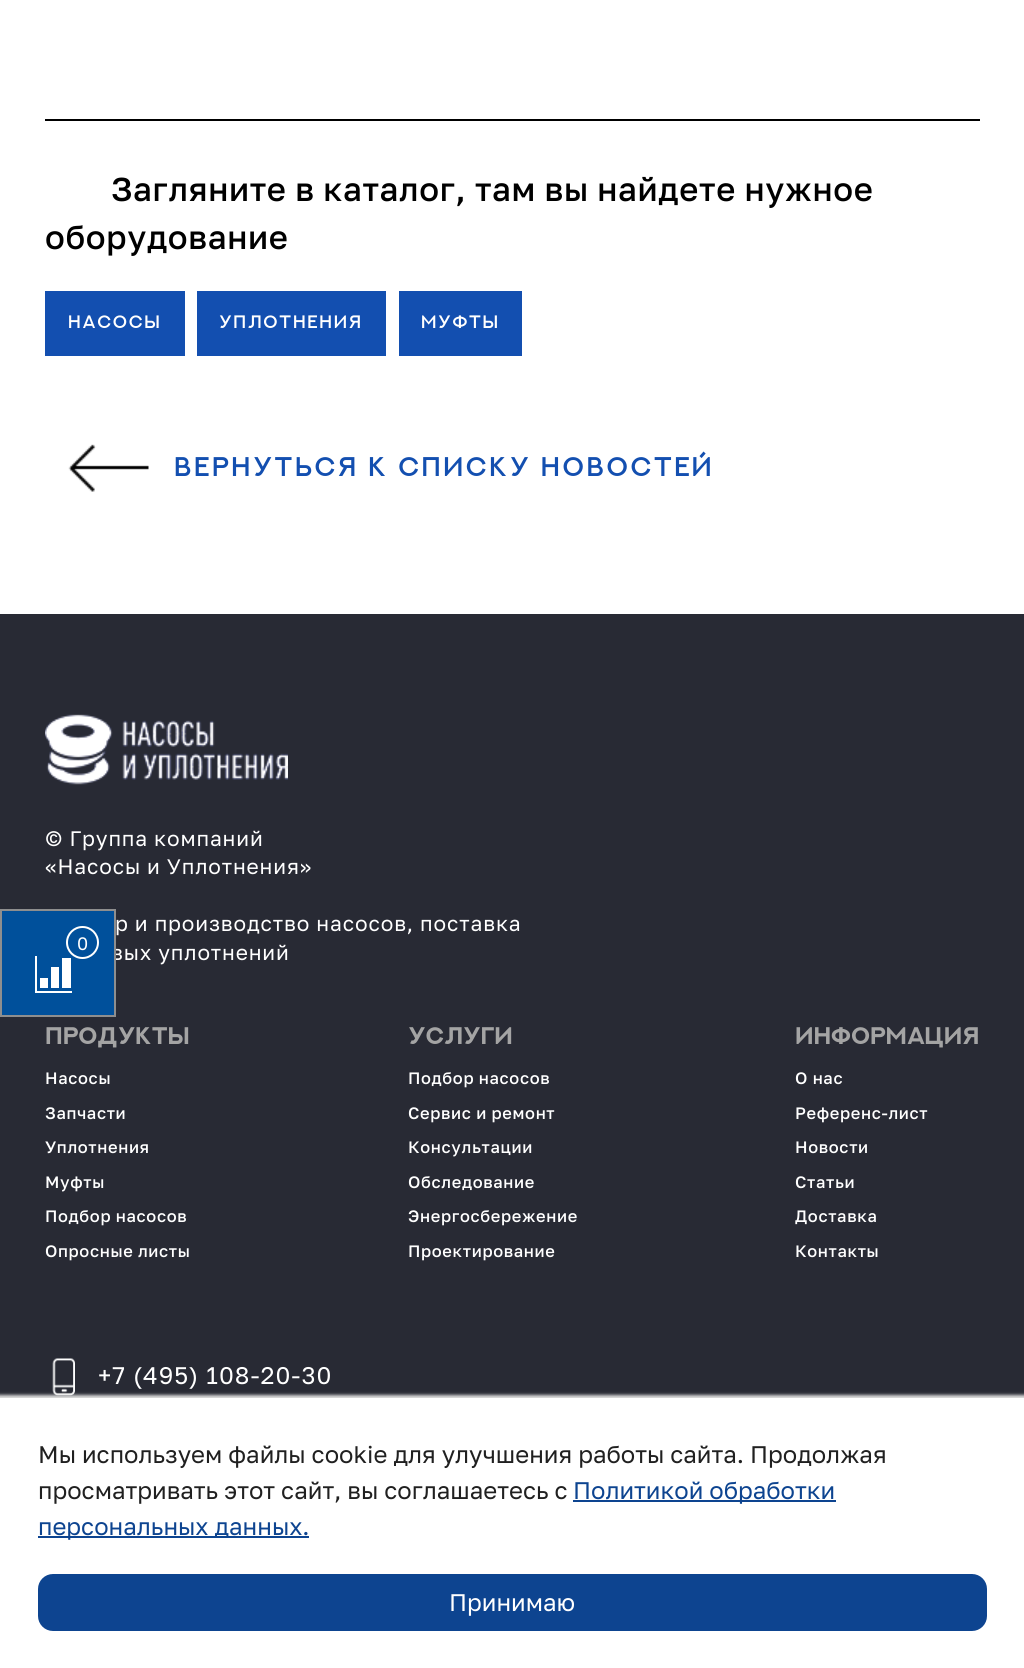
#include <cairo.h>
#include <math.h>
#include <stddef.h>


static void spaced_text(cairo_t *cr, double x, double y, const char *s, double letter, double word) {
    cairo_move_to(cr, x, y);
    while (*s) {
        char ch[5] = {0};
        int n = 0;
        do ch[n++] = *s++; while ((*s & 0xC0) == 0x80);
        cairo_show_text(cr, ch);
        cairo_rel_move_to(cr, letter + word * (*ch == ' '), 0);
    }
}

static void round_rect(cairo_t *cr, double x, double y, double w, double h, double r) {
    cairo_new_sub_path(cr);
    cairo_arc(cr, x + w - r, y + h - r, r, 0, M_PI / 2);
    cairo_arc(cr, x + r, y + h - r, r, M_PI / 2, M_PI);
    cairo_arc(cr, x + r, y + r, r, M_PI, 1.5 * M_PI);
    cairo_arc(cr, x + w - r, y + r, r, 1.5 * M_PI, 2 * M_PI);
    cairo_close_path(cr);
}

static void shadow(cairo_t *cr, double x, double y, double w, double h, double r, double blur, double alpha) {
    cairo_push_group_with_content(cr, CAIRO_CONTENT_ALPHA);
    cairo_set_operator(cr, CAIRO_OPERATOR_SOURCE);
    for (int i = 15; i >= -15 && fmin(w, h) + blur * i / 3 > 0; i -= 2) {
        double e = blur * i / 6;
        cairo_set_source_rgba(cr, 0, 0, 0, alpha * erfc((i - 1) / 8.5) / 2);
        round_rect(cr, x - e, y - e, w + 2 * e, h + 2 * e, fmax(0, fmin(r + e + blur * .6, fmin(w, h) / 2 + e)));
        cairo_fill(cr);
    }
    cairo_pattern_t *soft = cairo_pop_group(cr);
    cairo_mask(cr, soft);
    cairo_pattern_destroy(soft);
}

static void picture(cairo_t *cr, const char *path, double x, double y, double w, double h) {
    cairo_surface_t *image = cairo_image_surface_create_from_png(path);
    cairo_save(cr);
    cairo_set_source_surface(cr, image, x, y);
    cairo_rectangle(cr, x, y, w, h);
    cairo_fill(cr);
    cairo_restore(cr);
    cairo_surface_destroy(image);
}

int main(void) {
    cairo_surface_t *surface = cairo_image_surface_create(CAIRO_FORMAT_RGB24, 1024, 1668);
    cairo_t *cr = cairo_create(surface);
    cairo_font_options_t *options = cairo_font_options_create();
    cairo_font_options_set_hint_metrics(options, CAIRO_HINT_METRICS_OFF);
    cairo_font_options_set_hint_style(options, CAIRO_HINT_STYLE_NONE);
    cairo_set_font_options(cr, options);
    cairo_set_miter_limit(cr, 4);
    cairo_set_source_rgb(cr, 1, 1, 1);
    cairo_paint(cr);
    cairo_set_source_rgb(cr, 0, 0, 0);
    cairo_rectangle(cr, 45, 119, 935, 2);
    cairo_fill(cr);
    cairo_select_font_face(cr, "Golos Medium", CAIRO_FONT_SLANT_NORMAL, CAIRO_FONT_WEIGHT_NORMAL);
    cairo_set_font_size(cr, 33);
    spaced_text(cr, 111, 201, "Загляните в каталог, там вы найдете нужное", 0.65, 0);
    spaced_text(cr, 45, 249, "оборудование", 0.65, 0);
    cairo_set_source_rgb(cr, 0.075, 0.31, 0.69);
    cairo_rectangle(cr, 45, 291, 140, 65);
    cairo_fill(cr);
    cairo_select_font_face(cr, "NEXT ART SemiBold", CAIRO_FONT_SLANT_NORMAL, CAIRO_FONT_WEIGHT_NORMAL);
    cairo_set_font_size(cr, 18);
    cairo_set_source_rgb(cr, 1, 1, 1);
    spaced_text(cr, 68, 328, "НАСОСЫ", 1.75, 0);
    cairo_set_source_rgb(cr, 0.075, 0.31, 0.69);
    cairo_rectangle(cr, 197, 291, 189, 65);
    cairo_fill(cr);
    cairo_set_source_rgb(cr, 1, 1, 1);
    spaced_text(cr, 219, 328, "УПЛОТНЕНИЯ", 1.75, 0);
    cairo_set_source_rgb(cr, 0.075, 0.31, 0.69);
    cairo_rectangle(cr, 399, 291, 123, 65);
    cairo_fill(cr);
    cairo_set_source_rgb(cr, 1, 1, 1);
    spaced_text(cr, 421, 328, "МУФТЫ", 1.75, 0);
    picture(cr, "img1.png", 68, 444, 81, 48);
    cairo_set_font_size(cr, 27);
    cairo_set_source_rgb(cr, 0.075, 0.31, 0.69);
    spaced_text(cr, 174, 476, "ВЕРНУТЬСЯ К СПИСКУ НОВОСТЕЙ", 2.7, 0);
    cairo_set_source_rgb(cr, 0.157, 0.165, 0.204);
    cairo_rectangle(cr, 0, 614, 1024, 784);
    cairo_fill(cr);
    picture(cr, "img2.png", 45, 714, 243, 71);
    cairo_select_font_face(cr, "Golos", CAIRO_FONT_SLANT_NORMAL, CAIRO_FONT_WEIGHT_NORMAL);
    cairo_set_font_size(cr, 21);
    cairo_set_source_rgb(cr, 1, 1, 1);
    spaced_text(cr, 45, 846, "© Группа компаний", 0.85, 0);
    spaced_text(cr, 45, 874, "«Насосы и Уплотнения»", 0.85, 0);
    spaced_text(cr, 115, 931, "р и производство насосов, поставка", 0.85, 0);
    spaced_text(cr, 111, 960, "вых уплотнений", 0.85, 0);
    cairo_select_font_face(cr, "NEXT ART", CAIRO_FONT_SLANT_NORMAL, CAIRO_FONT_WEIGHT_BOLD);
    cairo_set_font_size(cr, 24);
    cairo_set_source_rgb(cr, 0.643, 0.643, 0.643);
    cairo_move_to(cr, 45, 1044);
    cairo_show_text(cr, "ПРОДУКТЫ");
    cairo_select_font_face(cr, "Golos Medium", CAIRO_FONT_SLANT_NORMAL, CAIRO_FONT_WEIGHT_NORMAL);
    cairo_set_font_size(cr, 16.5);
    cairo_set_source_rgb(cr, 1, 1, 1);
    spaced_text(cr, 45, 1084, "Насосы", 0.65, 0);
    spaced_text(cr, 45, 1119, "Запчасти", 0.65, 0);
    spaced_text(cr, 45, 1153, "Уплотнения", 0.65, 0);
    spaced_text(cr, 45, 1188, "Муфты", 0.65, 0);
    spaced_text(cr, 45, 1222, "Подбор насосов", 0.65, 0);
    spaced_text(cr, 45, 1257, "Опросные листы", 0.65, 0);
    cairo_select_font_face(cr, "NEXT ART", CAIRO_FONT_SLANT_NORMAL, CAIRO_FONT_WEIGHT_BOLD);
    cairo_set_font_size(cr, 24);
    cairo_set_source_rgb(cr, 0.643, 0.643, 0.643);
    cairo_move_to(cr, 408, 1044);
    cairo_show_text(cr, "УСЛУГИ");
    cairo_select_font_face(cr, "Golos Medium", CAIRO_FONT_SLANT_NORMAL, CAIRO_FONT_WEIGHT_NORMAL);
    cairo_set_font_size(cr, 16.5);
    cairo_set_source_rgb(cr, 1, 1, 1);
    spaced_text(cr, 408, 1084, "Подбор насосов", 0.65, 0);
    spaced_text(cr, 408, 1119, "Сервис и ремонт", 0.65, 0);
    spaced_text(cr, 408, 1153, "Консультации", 0.65, 0);
    spaced_text(cr, 408, 1188, "Обследование", 0.65, 0);
    spaced_text(cr, 408, 1222, "Энергосбережение", 0.65, 0);
    spaced_text(cr, 408, 1257, "Проектирование", 0.65, 0);
    cairo_select_font_face(cr, "NEXT ART", CAIRO_FONT_SLANT_NORMAL, CAIRO_FONT_WEIGHT_BOLD);
    cairo_set_font_size(cr, 24);
    cairo_set_source_rgb(cr, 0.643, 0.643, 0.643);
    cairo_move_to(cr, 795, 1044);
    cairo_show_text(cr, "ИНФОРМАЦИЯ");
    cairo_select_font_face(cr, "Golos Medium", CAIRO_FONT_SLANT_NORMAL, CAIRO_FONT_WEIGHT_NORMAL);
    cairo_set_font_size(cr, 16.5);
    cairo_set_source_rgb(cr, 1, 1, 1);
    spaced_text(cr, 795, 1084, "О нас", 0.65, 0);
    spaced_text(cr, 795, 1119, "Референс-лист", 0.65, 0);
    spaced_text(cr, 795, 1153, "Новости", 0.65, 0);
    spaced_text(cr, 795, 1188, "Статьи", 0.65, 0);
    spaced_text(cr, 795, 1222, "Доставка", 0.65, 0);
    spaced_text(cr, 795, 1257, "Контакты", 0.65, 0);
    picture(cr, "img3.png", 52, 1358, 23, 38);
    cairo_select_font_face(cr, "Golos", CAIRO_FONT_SLANT_NORMAL, CAIRO_FONT_WEIGHT_NORMAL);
    cairo_set_font_size(cr, 24);
    spaced_text(cr, 98, 1384, "+7 (495) 108-20-30", 1, 0);
    cairo_set_source_rgb(cr, 0, 0.314, 0.608);
    cairo_rectangle(cr, 1, 910, 114, 106);
    cairo_fill_preserve(cr);
    cairo_set_source_rgb(cr, 0.557, 0.557, 0.557);
    cairo_stroke(cr);
    cairo_arc(cr, 82.5, 942.5, 15.5, 0, 2 * M_PI);
    cairo_set_source_rgb(cr, 1, 1, 1);
    cairo_stroke(cr);
    cairo_set_font_size(cr, 18);
    cairo_move_to(cr, 77, 950);
    cairo_show_text(cr, "0");
    cairo_rectangle(cr, 35, 991, 37, 2);
    cairo_fill(cr);
    cairo_rectangle(cr, 35, 956, 2, 37);
    cairo_fill(cr);
    cairo_rectangle(cr, 62, 958, 9, 30);
    cairo_fill(cr);
    cairo_rectangle(cr, 51, 967, 8, 21);
    cairo_fill(cr);
    cairo_rectangle(cr, 40, 978, 8, 10);
    cairo_fill(cr);
    cairo_set_source_rgb(cr, 0.867, 0.867, 0.867);
    shadow(cr, -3, 1395, 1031, 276, 0, 1.5, 1);
    cairo_set_source_rgb(cr, 1, 1, 1);
    cairo_rectangle(cr, 0, 1398, 1024, 270);
    cairo_fill(cr);
    cairo_set_font_size(cr, 24);
    cairo_set_source_rgb(cr, 0.125, 0.125, 0.125);
    cairo_move_to(cr, 38, 1463);
    cairo_show_text(cr, "Мы используем файлы cookie для улучшения работы сайта. Продолжая");
    cairo_move_to(cr, 38, 1499);
    cairo_show_text(cr, "просматривать этот сайт, вы соглашаетесь с");
    cairo_set_source_rgb(cr, 0.051, 0.267, 0.565);
    cairo_rectangle(cr, 573, 1500, 263, 2);
    cairo_fill(cr);
    cairo_move_to(cr, 573, 1499);
    cairo_show_text(cr, "Политикой обработки");
    cairo_rectangle(cr, 38, 1536, 271, 2);
    cairo_fill(cr);
    cairo_move_to(cr, 38, 1535);
    cairo_show_text(cr, "персональных данных.");
    round_rect(cr, 40.5, 1576.5, 944, 52, 12.5);
    cairo_fill_preserve(cr);
    cairo_set_line_width(cr, 5);
    cairo_stroke(cr);
    cairo_set_source_rgb(cr, 1, 1, 1);
    cairo_move_to(cr, 449, 1611);
    cairo_show_text(cr, "Принимаю");
    cairo_surface_write_to_png(surface, "page.png");
    cairo_font_options_destroy(options);
    cairo_destroy(cr);
    cairo_surface_destroy(surface);
    return 0;
}
